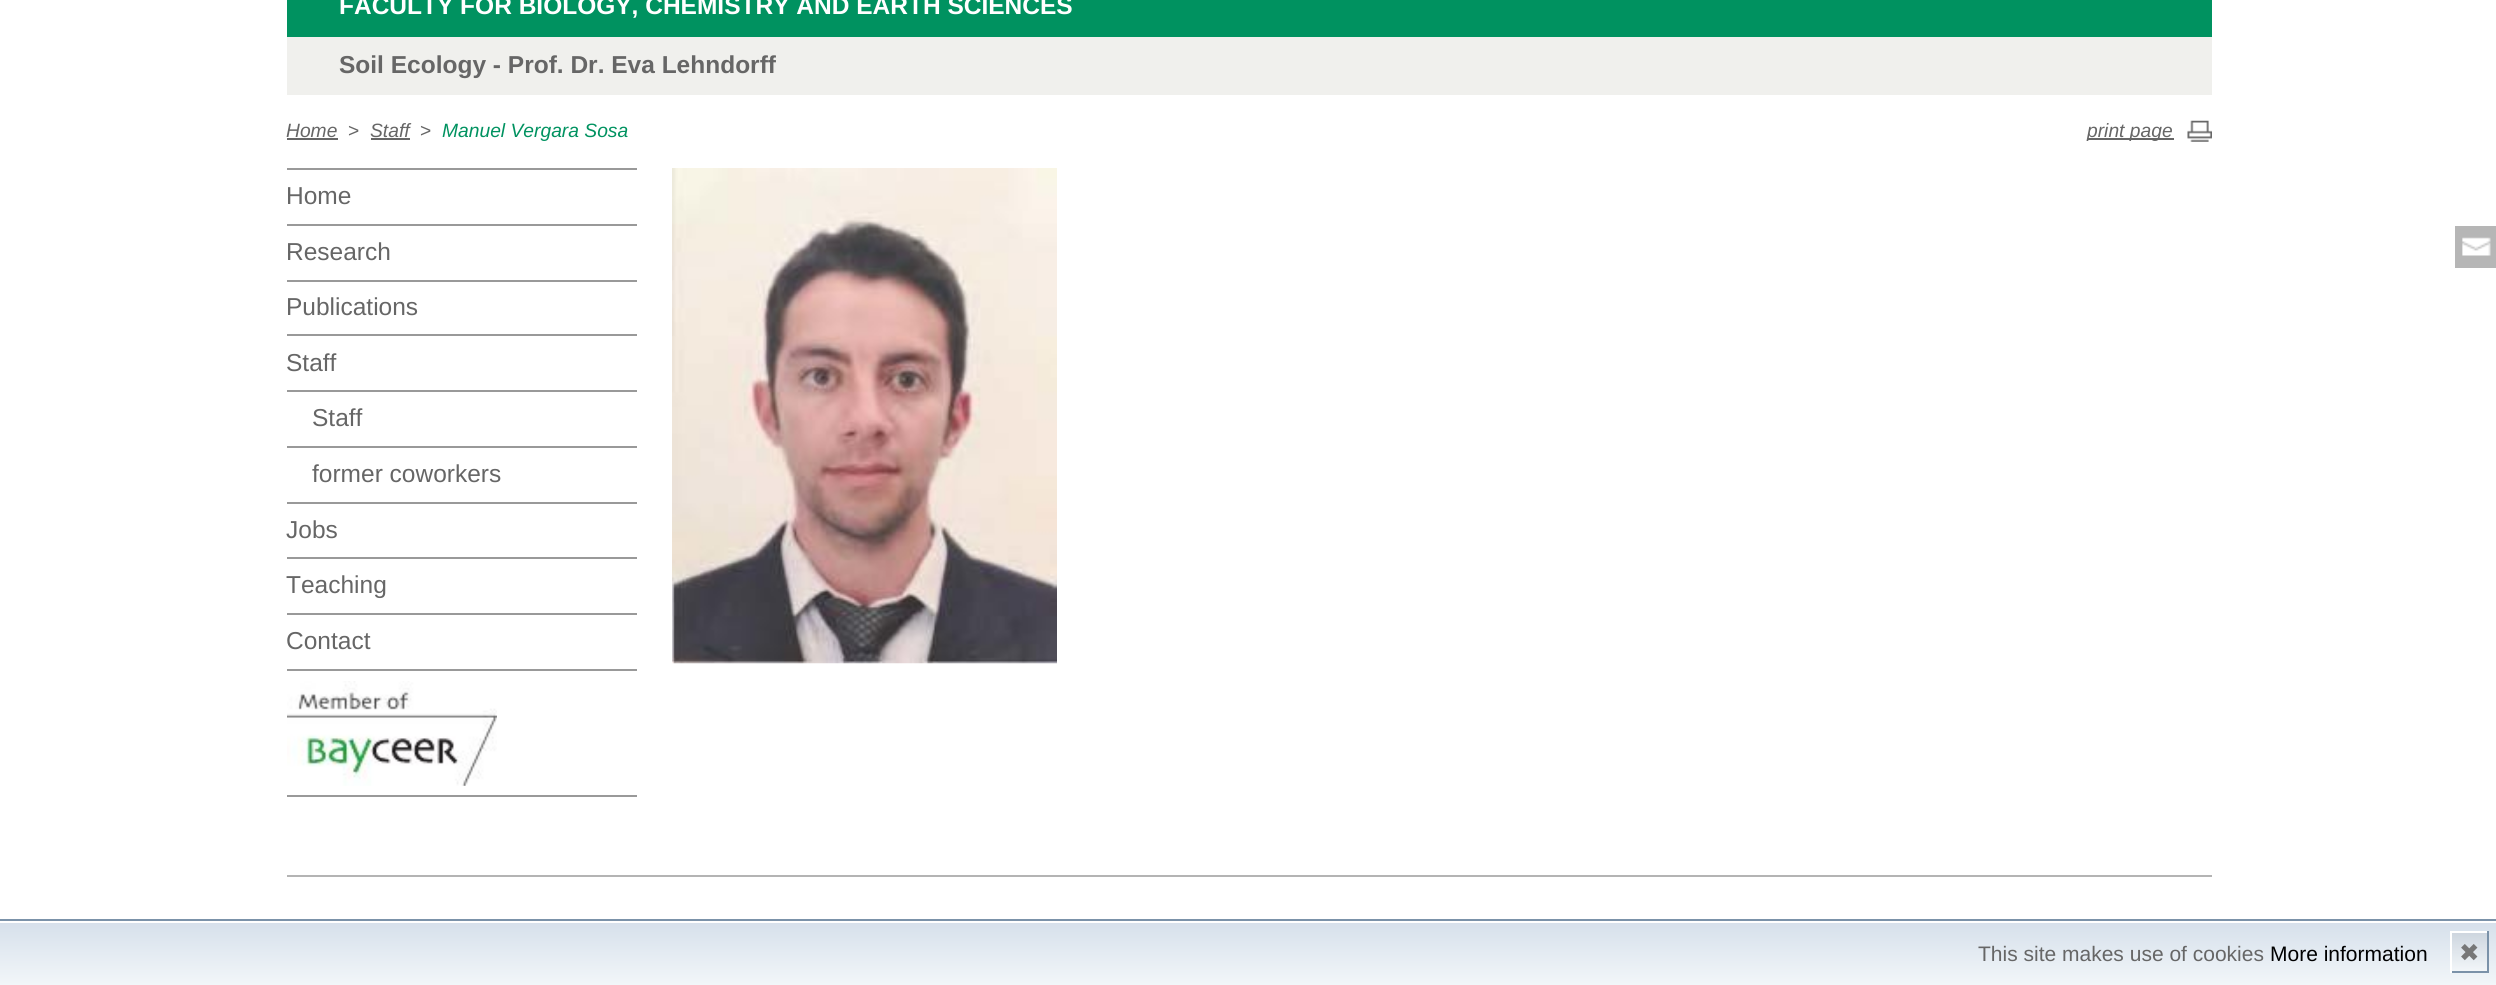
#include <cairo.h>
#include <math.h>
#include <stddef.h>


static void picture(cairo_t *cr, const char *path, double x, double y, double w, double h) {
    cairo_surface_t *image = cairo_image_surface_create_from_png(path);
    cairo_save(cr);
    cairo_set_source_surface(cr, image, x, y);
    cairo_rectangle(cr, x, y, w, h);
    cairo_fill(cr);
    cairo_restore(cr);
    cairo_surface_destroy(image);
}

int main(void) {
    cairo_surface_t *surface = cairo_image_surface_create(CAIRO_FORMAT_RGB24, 2496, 985);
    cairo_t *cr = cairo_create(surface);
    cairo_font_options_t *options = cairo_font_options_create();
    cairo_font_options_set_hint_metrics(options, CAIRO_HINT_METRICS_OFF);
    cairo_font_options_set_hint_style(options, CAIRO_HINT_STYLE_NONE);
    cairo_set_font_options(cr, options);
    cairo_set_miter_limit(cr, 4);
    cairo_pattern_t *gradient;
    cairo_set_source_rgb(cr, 1, 1, 1);
    cairo_paint(cr);
    cairo_set_source_rgb(cr, 0, 0.573, 0.376);
    cairo_rectangle(cr, 287, 0, 1925, 37);
    cairo_fill(cr);
    cairo_select_font_face(cr, "Liberation Sans", CAIRO_FONT_SLANT_NORMAL, CAIRO_FONT_WEIGHT_BOLD);
    cairo_set_font_size(cr, 24.5);
    cairo_set_source_rgb(cr, 1, 1, 1);
    cairo_move_to(cr, 339, 14);
    cairo_show_text(cr, "FACULTY FOR BIOLOGY, CHEMISTRY AND EARTH SCIENCES");
    cairo_set_source_rgb(cr, 0.941, 0.941, 0.929);
    cairo_rectangle(cr, 287, 37, 1925, 58);
    cairo_fill(cr);
    cairo_set_source_rgb(cr, 0.4, 0.4, 0.4);
    cairo_move_to(cr, 339, 73);
    cairo_show_text(cr, "Soil Ecology - Prof. Dr. Eva Lehndorff");
    cairo_select_font_face(cr, "Liberation Sans", CAIRO_FONT_SLANT_ITALIC, CAIRO_FONT_WEIGHT_NORMAL);
    cairo_set_font_size(cr, 19.25);
    cairo_move_to(cr, 286, 137);
    cairo_show_text(cr, "Home");
    cairo_rectangle(cr, 287, 138, 51, 2);
    cairo_fill(cr);
    cairo_select_font_face(cr, "Liberation Sans", CAIRO_FONT_SLANT_NORMAL, CAIRO_FONT_WEIGHT_NORMAL);
    cairo_move_to(cr, 348, 137);
    cairo_show_text(cr, ">");
    cairo_select_font_face(cr, "Liberation Sans", CAIRO_FONT_SLANT_ITALIC, CAIRO_FONT_WEIGHT_NORMAL);
    cairo_move_to(cr, 370, 137);
    cairo_show_text(cr, "Staff");
    cairo_rectangle(cr, 371, 138, 39, 2);
    cairo_fill(cr);
    cairo_select_font_face(cr, "Liberation Sans", CAIRO_FONT_SLANT_NORMAL, CAIRO_FONT_WEIGHT_NORMAL);
    cairo_move_to(cr, 420, 137);
    cairo_show_text(cr, ">");
    cairo_select_font_face(cr, "Liberation Sans", CAIRO_FONT_SLANT_ITALIC, CAIRO_FONT_WEIGHT_NORMAL);
    cairo_set_source_rgb(cr, 0, 0.573, 0.376);
    cairo_move_to(cr, 442, 137);
    cairo_show_text(cr, "Manuel Vergara Sosa");
    picture(cr, "img1.png", 2187, 120, 25, 22);
    cairo_set_source_rgb(cr, 0.4, 0.4, 0.4);
    cairo_rectangle(cr, 2088, 138, 86, 2);
    cairo_fill(cr);
    cairo_move_to(cr, 2087, 137);
    cairo_show_text(cr, "print page");
    cairo_set_source_rgb(cr, 0.6, 0.6, 0.6);
    cairo_rectangle(cr, 287, 795, 350, 2);
    cairo_fill(cr);
    cairo_rectangle(cr, 287, 168, 350, 2);
    cairo_fill(cr);
    cairo_select_font_face(cr, "Liberation Sans", CAIRO_FONT_SLANT_NORMAL, CAIRO_FONT_WEIGHT_NORMAL);
    cairo_set_font_size(cr, 24.5);
    cairo_set_source_rgb(cr, 0.4, 0.4, 0.4);
    cairo_move_to(cr, 286, 204);
    cairo_show_text(cr, "Home");
    cairo_set_source_rgb(cr, 0.6, 0.6, 0.6);
    cairo_rectangle(cr, 287, 224, 350, 2);
    cairo_fill(cr);
    cairo_set_source_rgb(cr, 0.4, 0.4, 0.4);
    cairo_move_to(cr, 286, 260);
    cairo_show_text(cr, "Research");
    cairo_set_source_rgb(cr, 0.6, 0.6, 0.6);
    cairo_rectangle(cr, 287, 280, 350, 2);
    cairo_fill(cr);
    cairo_set_source_rgb(cr, 0.4, 0.4, 0.4);
    cairo_move_to(cr, 286, 315);
    cairo_show_text(cr, "Publications");
    cairo_set_source_rgb(cr, 0.6, 0.6, 0.6);
    cairo_rectangle(cr, 287, 334, 350, 2);
    cairo_fill(cr);
    cairo_set_source_rgb(cr, 0.4, 0.4, 0.4);
    cairo_move_to(cr, 286, 371);
    cairo_show_text(cr, "Staff");
    cairo_set_source_rgb(cr, 0.6, 0.6, 0.6);
    cairo_rectangle(cr, 287, 390, 350, 2);
    cairo_fill(cr);
    cairo_set_source_rgb(cr, 0.4, 0.4, 0.4);
    cairo_move_to(cr, 312, 426);
    cairo_show_text(cr, "Staff");
    cairo_set_source_rgb(cr, 0.6, 0.6, 0.6);
    cairo_rectangle(cr, 287, 446, 350, 2);
    cairo_fill(cr);
    cairo_set_source_rgb(cr, 0.4, 0.4, 0.4);
    cairo_move_to(cr, 312, 482);
    cairo_show_text(cr, "former coworkers");
    cairo_set_source_rgb(cr, 0.6, 0.6, 0.6);
    cairo_rectangle(cr, 287, 502, 350, 2);
    cairo_fill(cr);
    cairo_set_source_rgb(cr, 0.4, 0.4, 0.4);
    cairo_move_to(cr, 286, 538);
    cairo_show_text(cr, "Jobs");
    cairo_set_source_rgb(cr, 0.6, 0.6, 0.6);
    cairo_rectangle(cr, 287, 557, 350, 2);
    cairo_fill(cr);
    cairo_set_source_rgb(cr, 0.4, 0.4, 0.4);
    cairo_move_to(cr, 286, 593);
    cairo_show_text(cr, "Teaching");
    cairo_set_source_rgb(cr, 0.6, 0.6, 0.6);
    cairo_rectangle(cr, 287, 613, 350, 2);
    cairo_fill(cr);
    cairo_set_source_rgb(cr, 0.4, 0.4, 0.4);
    cairo_move_to(cr, 286, 649);
    cairo_show_text(cr, "Contact");
    cairo_set_source_rgb(cr, 0.6, 0.6, 0.6);
    cairo_rectangle(cr, 287, 669, 350, 2);
    cairo_fill(cr);
    picture(cr, "img2.png", 287, 681, 210, 105);
    picture(cr, "img3.png", 672, 168, 385, 496);
    cairo_set_source_rgb(cr, 0.714, 0.714, 0.714);
    cairo_rectangle(cr, 2455, 226, 41, 42);
    cairo_fill(cr);
    picture(cr, "img4.png", 2462, 237, 29, 19);
    cairo_set_source_rgb(cr, 0.706, 0.706, 0.706);
    cairo_rectangle(cr, 287, 875, 1925, 2);
    cairo_fill(cr);
    gradient = cairo_pattern_create_linear(1249, 922, 1249, 985);
    cairo_pattern_add_color_stop_rgba(gradient, 0, 0.839, 0.878, 0.922, 1);
    cairo_pattern_add_color_stop_rgba(gradient, 1, 0.949, 0.965, 0.976, 1);
    cairo_set_source(cr, gradient);
    cairo_pattern_destroy(gradient);
    cairo_rectangle(cr, 0, 923, 2496, 62);
    cairo_fill(cr);
    cairo_rectangle(cr, -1, 920, 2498, 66);
    cairo_set_source_rgb(cr, 0.482, 0.573, 0.663);
    cairo_stroke(cr);
    cairo_set_font_size(cr, 21);
    cairo_set_source_rgb(cr, 0.4, 0.4, 0.4);
    cairo_move_to(cr, 1978, 961);
    cairo_show_text(cr, "This site makes use of cookies");
    cairo_set_source_rgb(cr, 0, 0, 0);
    cairo_move_to(cr, 2270, 961);
    cairo_show_text(cr, "More information");
    gradient = cairo_pattern_create_linear(2469, 933, 2469, 971);
    cairo_pattern_add_color_stop_rgba(gradient, 0, 0.808, 0.839, 0.875, 1);
    cairo_pattern_add_color_stop_rgba(gradient, 1, 0.949, 0.965, 0.976, 1);
    cairo_set_source(cr, gradient);
    cairo_pattern_destroy(gradient);
    cairo_rectangle(cr, 2452, 933, 35, 38);
    cairo_fill(cr);
    cairo_set_source_rgb(cr, 1, 1, 1);
    cairo_rectangle(cr, 2450, 931, 39, 2);
    cairo_fill(cr);
    cairo_set_source_rgb(cr, 0.482, 0.573, 0.663);
    cairo_rectangle(cr, 2487, 931, 2, 42);
    cairo_fill(cr);
    cairo_rectangle(cr, 2450, 971, 39, 2);
    cairo_fill(cr);
    cairo_set_source_rgb(cr, 1, 1, 1);
    cairo_rectangle(cr, 2450, 931, 2, 42);
    cairo_fill(cr);
    cairo_select_font_face(cr, "DejaVu Sans", CAIRO_FONT_SLANT_NORMAL, CAIRO_FONT_WEIGHT_NORMAL);
    cairo_set_font_size(cr, 24.5);
    cairo_set_source_rgb(cr, 0.467, 0.467, 0.467);
    cairo_move_to(cr, 2459, 961);
    cairo_show_text(cr, "✖");
    cairo_surface_write_to_png(surface, "page.png");
    cairo_font_options_destroy(options);
    cairo_destroy(cr);
    cairo_surface_destroy(surface);
    return 0;
}
